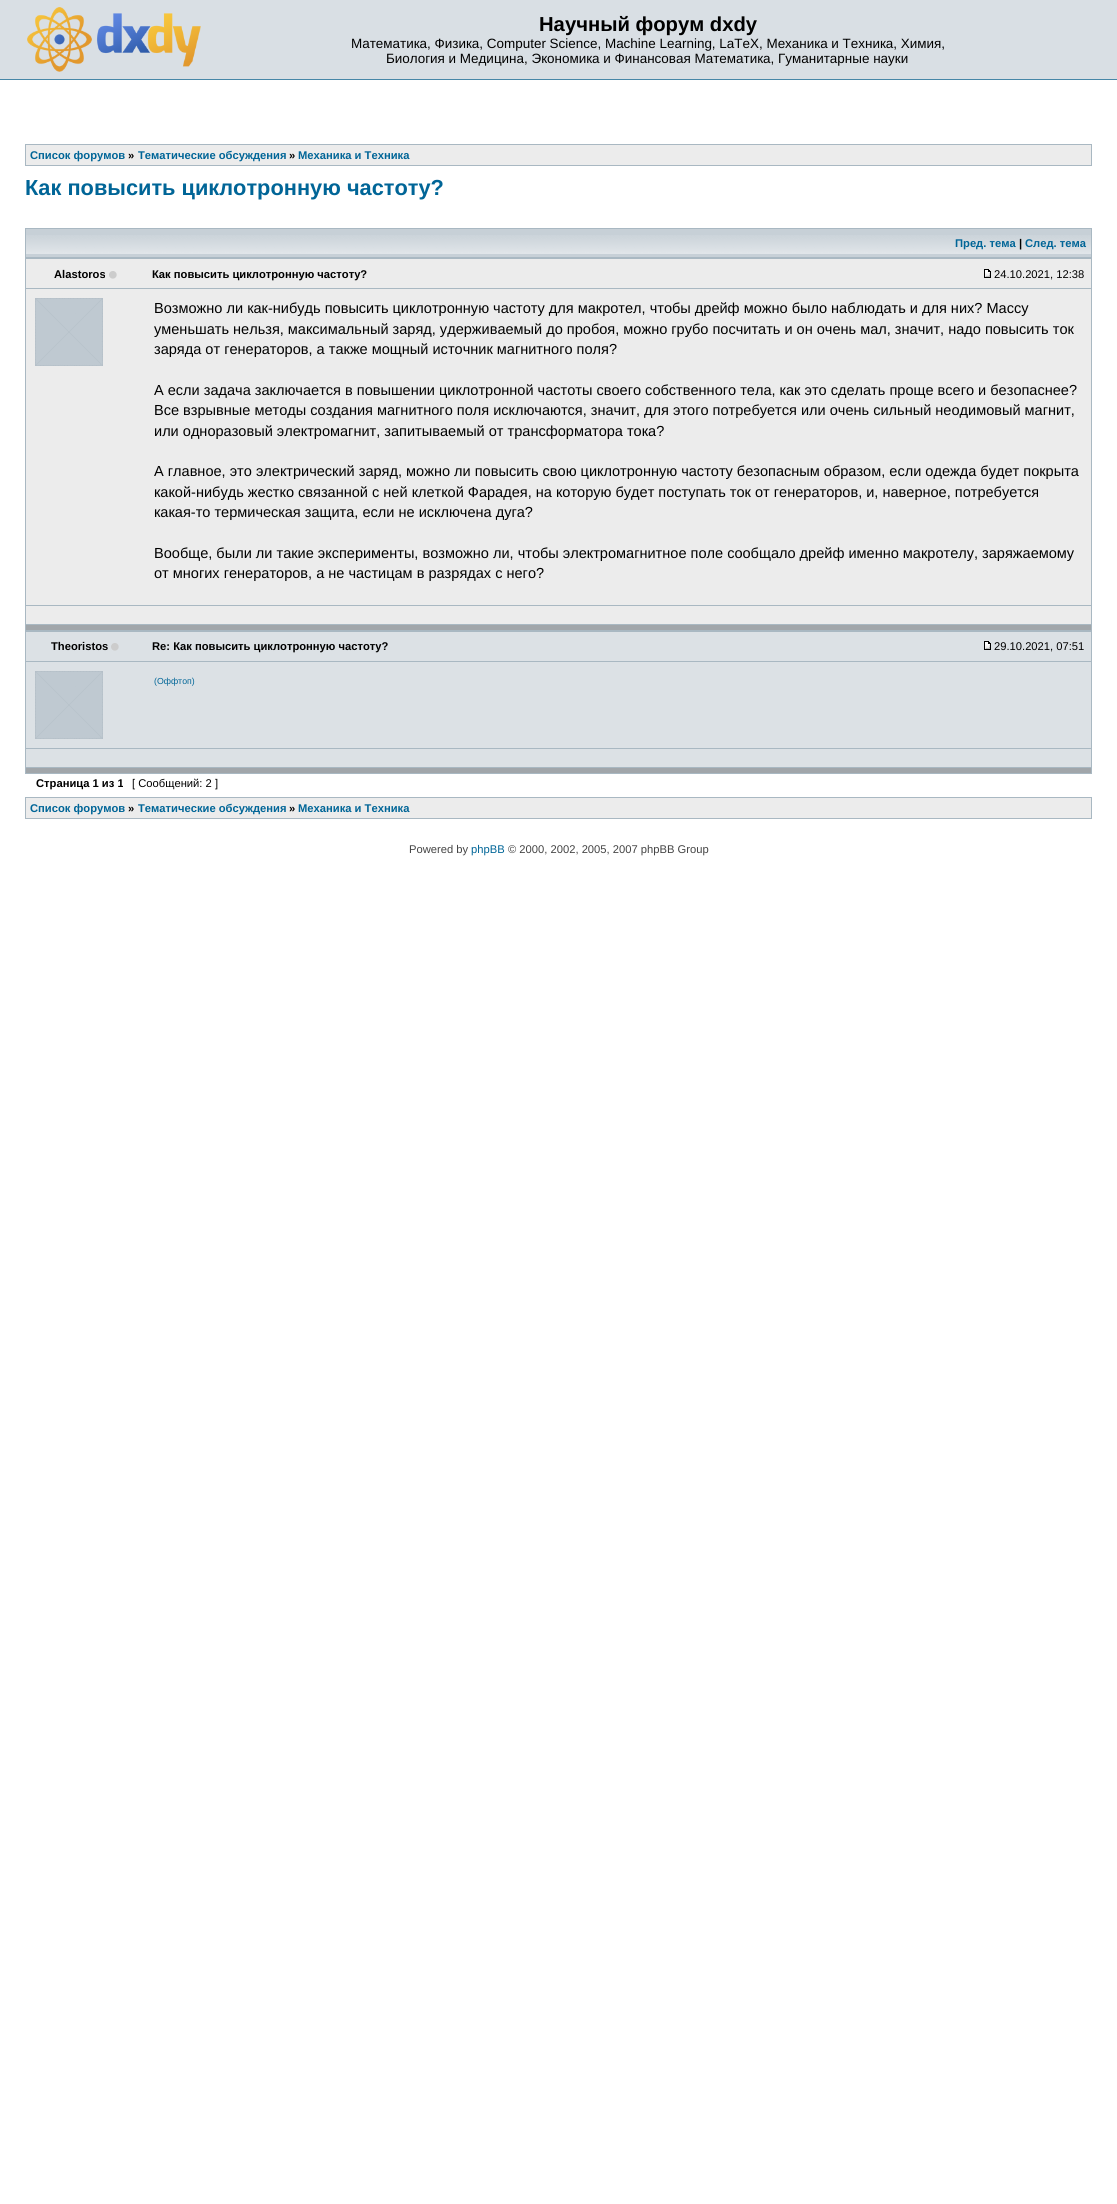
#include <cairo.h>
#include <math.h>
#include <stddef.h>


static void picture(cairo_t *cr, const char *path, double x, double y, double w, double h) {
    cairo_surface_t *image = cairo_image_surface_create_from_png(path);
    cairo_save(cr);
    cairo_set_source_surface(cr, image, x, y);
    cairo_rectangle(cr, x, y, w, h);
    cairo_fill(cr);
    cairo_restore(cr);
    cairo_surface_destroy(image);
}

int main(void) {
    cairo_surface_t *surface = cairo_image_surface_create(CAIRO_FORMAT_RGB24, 1117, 2204);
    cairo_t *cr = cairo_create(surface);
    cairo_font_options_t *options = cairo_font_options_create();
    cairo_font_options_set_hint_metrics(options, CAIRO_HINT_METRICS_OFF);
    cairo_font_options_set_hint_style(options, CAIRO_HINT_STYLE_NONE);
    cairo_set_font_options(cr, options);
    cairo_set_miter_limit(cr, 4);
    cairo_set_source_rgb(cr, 1, 1, 1);
    cairo_paint(cr);
    cairo_set_source_rgb(cr, 0.851, 0.875, 0.894);
    cairo_rectangle(cr, 0, 0, 1117, 79);
    cairo_fill(cr);
    cairo_set_source_rgb(cr, 0.278, 0.529, 0.655);
    cairo_rectangle(cr, 0, 79, 1117, 1);
    cairo_fill(cr);
    picture(cr, "img1.png", 27, 7, 174, 65);
    cairo_select_font_face(cr, "Liberation Sans", CAIRO_FONT_SLANT_NORMAL, CAIRO_FONT_WEIGHT_BOLD);
    cairo_set_font_size(cr, 20.25);
    cairo_set_source_rgb(cr, 0, 0, 0);
    cairo_move_to(cr, 539, 31);
    cairo_show_text(cr, "Научный форум dxdy");
    cairo_select_font_face(cr, "Liberation Sans", CAIRO_FONT_SLANT_NORMAL, CAIRO_FONT_WEIGHT_NORMAL);
    cairo_set_font_size(cr, 13.45);
    cairo_move_to(cr, 351, 48);
    cairo_show_text(cr, "Математика, Физика, Computer Science, Machine Learning, LaTeX, Механика и Техника, Химия,");
    cairo_move_to(cr, 386, 63);
    cairo_show_text(cr, "Биология и Медицина, Экономика и Финансовая Математика, Гуманитарные науки");
    cairo_set_source_rgb(cr, 0.663, 0.722, 0.761);
    cairo_rectangle(cr, 25, 144, 1067, 22);
    cairo_fill(cr);
    cairo_set_source_rgb(cr, 0.925, 0.925, 0.925);
    cairo_rectangle(cr, 26, 145, 1065, 20);
    cairo_fill(cr);
    cairo_select_font_face(cr, "Liberation Sans", CAIRO_FONT_SLANT_NORMAL, CAIRO_FONT_WEIGHT_BOLD);
    cairo_set_font_size(cr, 11.2);
    cairo_set_source_rgb(cr, 0, 0.396, 0.592);
    cairo_move_to(cr, 30, 159);
    cairo_show_text(cr, "Список форумов");
    cairo_set_source_rgb(cr, 0, 0, 0);
    cairo_move_to(cr, 128, 159);
    cairo_show_text(cr, "»");
    cairo_set_source_rgb(cr, 0, 0.396, 0.592);
    cairo_move_to(cr, 138, 159);
    cairo_show_text(cr, "Тематические обсуждения");
    cairo_set_source_rgb(cr, 0, 0, 0);
    cairo_move_to(cr, 289, 159);
    cairo_show_text(cr, "»");
    cairo_set_source_rgb(cr, 0, 0.396, 0.592);
    cairo_move_to(cr, 298, 159);
    cairo_show_text(cr, "Механика и Техника");
    cairo_set_font_size(cr, 21.8);
    cairo_move_to(cr, 25, 195);
    cairo_show_text(cr, "Как повысить циклотронную частоту?");
    cairo_set_source_rgb(cr, 0.663, 0.722, 0.761);
    cairo_rectangle(cr, 25, 228, 1067, 546);
    cairo_fill(cr);
    cairo_set_source_rgb(cr, 0.78, 0.816, 0.843);
    cairo_rectangle(cr, 26, 229, 1065, 28);
    cairo_fill(cr);
    picture(cr, "img2.png", 26, 235, 1065, 19);
    cairo_set_font_size(cr, 11.2);
    cairo_set_source_rgb(cr, 0, 0.396, 0.592);
    cairo_move_to(cr, 955, 247);
    cairo_show_text(cr, "Пред. тема");
    cairo_set_source_rgb(cr, 0, 0, 0);
    cairo_move_to(cr, 1019, 247);
    cairo_show_text(cr, "|");
    cairo_set_source_rgb(cr, 0, 0.396, 0.592);
    cairo_move_to(cr, 1025, 247);
    cairo_show_text(cr, "След. тема");
    cairo_set_source_rgb(cr, 0.925, 0.925, 0.925);
    cairo_rectangle(cr, 26, 259, 1065, 29);
    cairo_fill(cr);
    cairo_set_source_rgb(cr, 0, 0, 0);
    cairo_move_to(cr, 54, 278);
    cairo_show_text(cr, "Alastoros");
    picture(cr, "img3.png", 109, 271, 8, 8);
    cairo_move_to(cr, 152, 278);
    cairo_show_text(cr, "Как повысить циклотронную частоту?");
    picture(cr, "img4.png", 984, 269, 7, 9);
    cairo_select_font_face(cr, "Liberation Sans", CAIRO_FONT_SLANT_NORMAL, CAIRO_FONT_WEIGHT_NORMAL);
    cairo_move_to(cr, 994, 278);
    cairo_show_text(cr, "24.10.2021, 12:38");
    cairo_set_source_rgb(cr, 0.925, 0.925, 0.925);
    cairo_rectangle(cr, 26, 289, 1065, 316);
    cairo_fill(cr);
    picture(cr, "img5.png", 35, 298, 68, 68);
    cairo_set_font_size(cr, 14.55);
    cairo_set_source_rgb(cr, 0, 0, 0);
    cairo_move_to(cr, 154, 313);
    cairo_show_text(cr, "Возможно ли как-нибудь повысить циклотронную частоту для макротел, чтобы дрейф можно было наблюдать и для них? Массу");
    cairo_move_to(cr, 154, 334);
    cairo_show_text(cr, "уменьшать нельзя, максимальный заряд, удерживаемый до пробоя, можно грубо посчитать и он очень мал, значит, надо повысить ток");
    cairo_move_to(cr, 154, 354);
    cairo_show_text(cr, "заряда от генераторов, а также мощный источник магнитного поля?");
    cairo_move_to(cr, 154, 395);
    cairo_show_text(cr, "А если задача заключается в повышении циклотронной частоты своего собственного тела, как это сделать проще всего и безопаснее?");
    cairo_move_to(cr, 154, 415);
    cairo_show_text(cr, "Все взрывные методы создания магнитного поля исключаются, значит, для этого потребуется или очень сильный неодимовый магнит,");
    cairo_move_to(cr, 154, 436);
    cairo_show_text(cr, "или одноразовый электромагнит, запитываемый от трансформатора тока?");
    cairo_move_to(cr, 154, 476);
    cairo_show_text(cr, "А главное, это электрический заряд, можно ли повысить свою циклотронную частоту безопасным образом, если одежда будет покрыта");
    cairo_move_to(cr, 154, 497);
    cairo_show_text(cr, "какой-нибудь жестко связанной с ней клеткой Фарадея, на которую будет поступать ток от генераторов, и, наверное, потребуется");
    cairo_move_to(cr, 154, 517);
    cairo_show_text(cr, "какая-то термическая защита, если не исключена дуга?");
    cairo_move_to(cr, 154, 558);
    cairo_show_text(cr, "Вообще, были ли такие эксперименты, возможно ли, чтобы электромагнитное поле сообщало дрейф именно макротелу, заряжаемому");
    cairo_move_to(cr, 154, 578);
    cairo_show_text(cr, "от многих генераторов, а не частицам в разрядах с него?");
    cairo_set_source_rgb(cr, 0.925, 0.925, 0.925);
    cairo_rectangle(cr, 26, 606, 1065, 18);
    cairo_fill(cr);
    cairo_set_source_rgb(cr, 0.631, 0.651, 0.667);
    cairo_rectangle(cr, 26, 625, 1065, 5);
    cairo_fill(cr);
    cairo_set_source_rgb(cr, 0.863, 0.882, 0.898);
    cairo_rectangle(cr, 26, 632, 1065, 29);
    cairo_fill(cr);
    cairo_select_font_face(cr, "Liberation Sans", CAIRO_FONT_SLANT_NORMAL, CAIRO_FONT_WEIGHT_BOLD);
    cairo_set_font_size(cr, 11.2);
    cairo_set_source_rgb(cr, 0, 0, 0);
    cairo_move_to(cr, 51, 650);
    cairo_show_text(cr, "Theoristos");
    picture(cr, "img6.png", 111, 643, 8, 8);
    cairo_move_to(cr, 152, 650);
    cairo_show_text(cr, "Re: Как повысить циклотронную частоту?");
    picture(cr, "img7.png", 984, 641, 7, 9);
    cairo_select_font_face(cr, "Liberation Sans", CAIRO_FONT_SLANT_NORMAL, CAIRO_FONT_WEIGHT_NORMAL);
    cairo_move_to(cr, 994, 650);
    cairo_show_text(cr, "29.10.2021, 07:51");
    cairo_set_source_rgb(cr, 0.863, 0.882, 0.898);
    cairo_rectangle(cr, 26, 662, 1065, 86);
    cairo_fill(cr);
    picture(cr, "img5.png", 35, 671, 68, 68);
    cairo_set_font_size(cr, 8.75);
    cairo_set_source_rgb(cr, 0, 0.396, 0.592);
    cairo_move_to(cr, 154, 684);
    cairo_show_text(cr, "(Оффтоп)");
    cairo_set_source_rgb(cr, 0.863, 0.882, 0.898);
    cairo_rectangle(cr, 26, 749, 1065, 18);
    cairo_fill(cr);
    cairo_set_source_rgb(cr, 0.631, 0.651, 0.667);
    cairo_rectangle(cr, 26, 768, 1065, 5);
    cairo_fill(cr);
    cairo_select_font_face(cr, "Liberation Sans", CAIRO_FONT_SLANT_NORMAL, CAIRO_FONT_WEIGHT_BOLD);
    cairo_set_font_size(cr, 11.2);
    cairo_set_source_rgb(cr, 0, 0, 0);
    cairo_move_to(cr, 36, 787);
    cairo_show_text(cr, "Страница 1 из 1");
    cairo_select_font_face(cr, "Liberation Sans", CAIRO_FONT_SLANT_NORMAL, CAIRO_FONT_WEIGHT_NORMAL);
    cairo_move_to(cr, 132, 787);
    cairo_show_text(cr, "[ Сообщений: 2 ]");
    cairo_set_source_rgb(cr, 0.663, 0.722, 0.761);
    cairo_rectangle(cr, 25, 797, 1067, 22);
    cairo_fill(cr);
    cairo_set_source_rgb(cr, 0.925, 0.925, 0.925);
    cairo_rectangle(cr, 26, 798, 1065, 20);
    cairo_fill(cr);
    cairo_select_font_face(cr, "Liberation Sans", CAIRO_FONT_SLANT_NORMAL, CAIRO_FONT_WEIGHT_BOLD);
    cairo_set_source_rgb(cr, 0, 0.396, 0.592);
    cairo_move_to(cr, 30, 812);
    cairo_show_text(cr, "Список форумов");
    cairo_set_source_rgb(cr, 0, 0, 0);
    cairo_move_to(cr, 128, 812);
    cairo_show_text(cr, "»");
    cairo_set_source_rgb(cr, 0, 0.396, 0.592);
    cairo_move_to(cr, 138, 812);
    cairo_show_text(cr, "Тематические обсуждения");
    cairo_set_source_rgb(cr, 0, 0, 0);
    cairo_move_to(cr, 289, 812);
    cairo_show_text(cr, "»");
    cairo_set_source_rgb(cr, 0, 0.396, 0.592);
    cairo_move_to(cr, 298, 812);
    cairo_show_text(cr, "Механика и Техника");
    cairo_select_font_face(cr, "Liberation Sans", CAIRO_FONT_SLANT_NORMAL, CAIRO_FONT_WEIGHT_NORMAL);
    cairo_set_source_rgb(cr, 0.267, 0.267, 0.267);
    cairo_move_to(cr, 409, 853);
    cairo_show_text(cr, "Powered by");
    cairo_set_source_rgb(cr, 0, 0.396, 0.592);
    cairo_move_to(cr, 471, 853);
    cairo_show_text(cr, "phpBB");
    cairo_set_source_rgb(cr, 0.267, 0.267, 0.267);
    cairo_move_to(cr, 508, 853);
    cairo_show_text(cr, "© 2000, 2002, 2005, 2007 phpBB Group");
    cairo_surface_write_to_png(surface, "page.png");
    cairo_font_options_destroy(options);
    cairo_destroy(cr);
    cairo_surface_destroy(surface);
    return 0;
}
